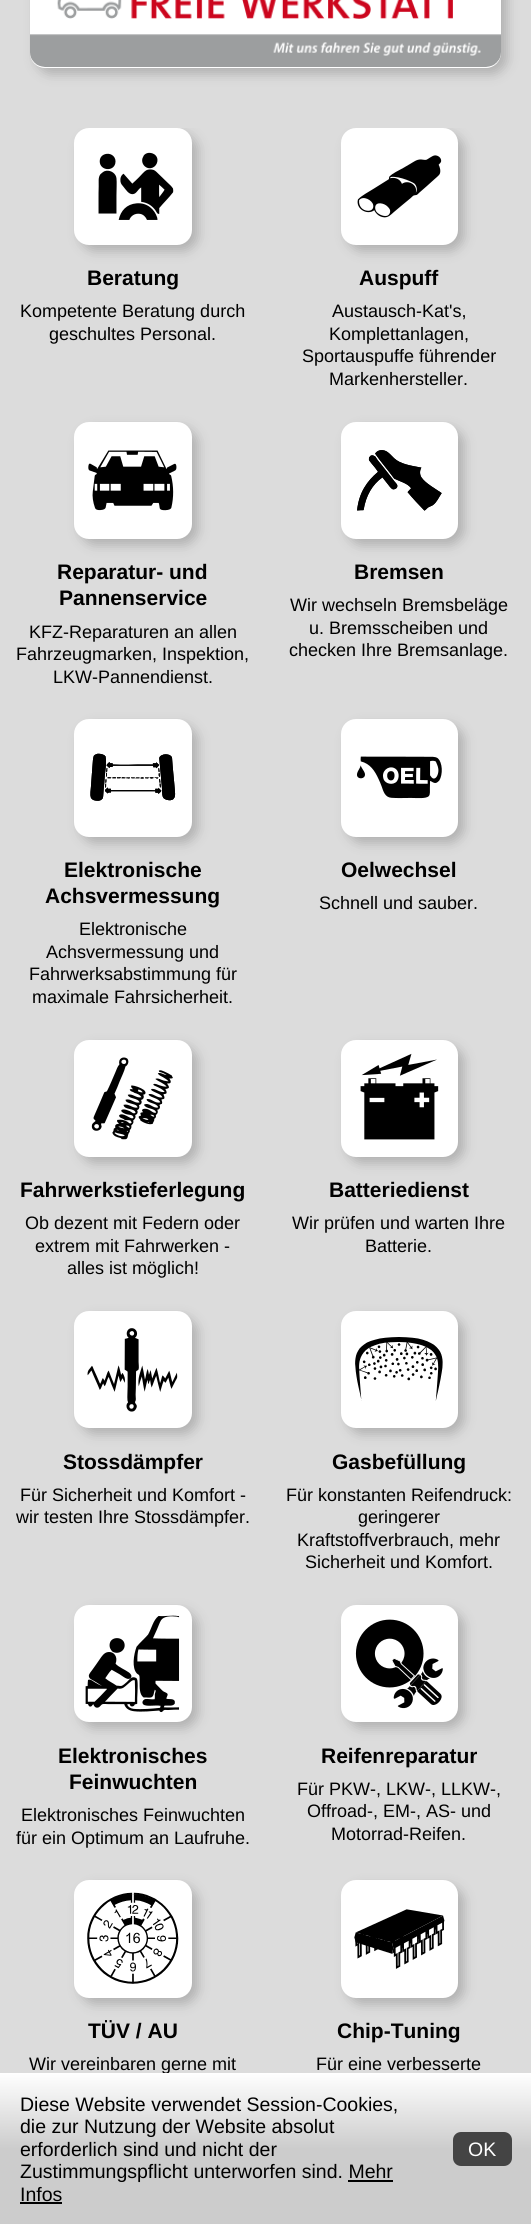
#include <cairo.h>
#include <math.h>
#include <stddef.h>


static void round_rect(cairo_t *cr, double x, double y, double w, double h, double r) {
    cairo_new_sub_path(cr);
    cairo_arc(cr, x + w - r, y + h - r, r, 0, M_PI / 2);
    cairo_arc(cr, x + r, y + h - r, r, M_PI / 2, M_PI);
    cairo_arc(cr, x + r, y + r, r, M_PI, 1.5 * M_PI);
    cairo_arc(cr, x + w - r, y + r, r, 1.5 * M_PI, 2 * M_PI);
    cairo_close_path(cr);
}

static void shadow(cairo_t *cr, double x, double y, double w, double h, double r, double blur, double alpha) {
    cairo_push_group_with_content(cr, CAIRO_CONTENT_ALPHA);
    cairo_set_operator(cr, CAIRO_OPERATOR_SOURCE);
    for (int i = 15; i >= -15 && fmin(w, h) + blur * i / 3 > 0; i -= 2) {
        double e = blur * i / 6;
        cairo_set_source_rgba(cr, 0, 0, 0, alpha * erfc((i - 1) / 8.5) / 2);
        round_rect(cr, x - e, y - e, w + 2 * e, h + 2 * e, fmax(0, fmin(r + e + blur * .6, fmin(w, h) / 2 + e)));
        cairo_fill(cr);
    }
    cairo_pattern_t *soft = cairo_pop_group(cr);
    cairo_mask(cr, soft);
    cairo_pattern_destroy(soft);
}

static void picture(cairo_t *cr, const char *path, double x, double y, double w, double h) {
    cairo_surface_t *image = cairo_image_surface_create_from_png(path);
    cairo_save(cr);
    cairo_set_source_surface(cr, image, x, y);
    cairo_rectangle(cr, x, y, w, h);
    cairo_fill(cr);
    cairo_restore(cr);
    cairo_surface_destroy(image);
}

int main(void) {
    cairo_surface_t *surface = cairo_image_surface_create(CAIRO_FORMAT_RGB24, 531, 2224);
    cairo_t *cr = cairo_create(surface);
    cairo_font_options_t *options = cairo_font_options_create();
    cairo_font_options_set_hint_metrics(options, CAIRO_HINT_METRICS_OFF);
    cairo_font_options_set_hint_style(options, CAIRO_HINT_STYLE_NONE);
    cairo_set_font_options(cr, options);
    cairo_set_miter_limit(cr, 4);
    cairo_pattern_t *gradient;
    cairo_set_source_rgb(cr, 0.863, 0.863, 0.863);
    cairo_paint(cr);
    cairo_set_source_rgb(cr, 0, 0, 0);
    shadow(cr, 36, -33, 471, 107, 15, 6, 0.2);
    cairo_set_source_rgb(cr, 1, 1, 1);
    round_rect(cr, 30, -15, 471, 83, 15);
    cairo_fill(cr);
    picture(cr, "img1.png", 30, 0, 471, 67);
    cairo_save(cr);
    cairo_rectangle(cr, 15, 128, 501, 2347);
    cairo_clip(cr);
    cairo_set_source_rgb(cr, 0, 0, 0);
    shadow(cr, 80, 134, 118, 117, 15, 6, 0.2);
    cairo_restore(cr);
    round_rect(cr, 77, 131, 112, 111, 12);
    cairo_fill_preserve(cr);
    cairo_set_line_width(cr, 6);
    cairo_stroke(cr);
    picture(cr, "img2.png", 98, 152, 76, 68);
    cairo_select_font_face(cr, "Liberation Sans", CAIRO_FONT_SLANT_NORMAL, CAIRO_FONT_WEIGHT_BOLD);
    cairo_set_font_size(cr, 21);
    cairo_set_source_rgb(cr, 0, 0, 0);
    cairo_move_to(cr, 87, 285);
    cairo_show_text(cr, "Beratung");
    cairo_select_font_face(cr, "Liberation Sans", CAIRO_FONT_SLANT_NORMAL, CAIRO_FONT_WEIGHT_NORMAL);
    cairo_set_font_size(cr, 18);
    cairo_move_to(cr, 20, 317);
    cairo_show_text(cr, "Kompetente Beratung durch");
    cairo_move_to(cr, 49, 340);
    cairo_show_text(cr, "geschultes Personal.");
    cairo_save(cr);
    cairo_rectangle(cr, 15, 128, 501, 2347);
    cairo_clip(cr);
    cairo_set_source_rgb(cr, 0, 0, 0);
    shadow(cr, 347, 134, 117, 117, 15, 6, 0.2);
    cairo_restore(cr);
    cairo_set_source_rgb(cr, 1, 1, 1);
    round_rect(cr, 344, 131, 111, 111, 12);
    cairo_fill_preserve(cr);
    cairo_stroke(cr);
    picture(cr, "img3.png", 357, 155, 85, 63);
    cairo_select_font_face(cr, "Liberation Sans", CAIRO_FONT_SLANT_NORMAL, CAIRO_FONT_WEIGHT_BOLD);
    cairo_set_font_size(cr, 21);
    cairo_set_source_rgb(cr, 0, 0, 0);
    cairo_move_to(cr, 359, 285);
    cairo_show_text(cr, "Auspuff");
    cairo_select_font_face(cr, "Liberation Sans", CAIRO_FONT_SLANT_NORMAL, CAIRO_FONT_WEIGHT_NORMAL);
    cairo_set_font_size(cr, 18);
    cairo_move_to(cr, 332, 317);
    cairo_show_text(cr, "Austausch-Kat's,");
    cairo_move_to(cr, 329, 340);
    cairo_show_text(cr, "Komplettanlagen,");
    cairo_move_to(cr, 302, 362);
    cairo_show_text(cr, "Sportauspuffe führender");
    cairo_move_to(cr, 329, 385);
    cairo_show_text(cr, "Markenhersteller.");
    cairo_set_source_rgb(cr, 0, 0, 0);
    shadow(cr, 80, 428, 118, 117, 15, 6, 0.2);
    cairo_set_source_rgb(cr, 1, 1, 1);
    round_rect(cr, 77, 425, 112, 111, 12);
    cairo_fill_preserve(cr);
    cairo_stroke(cr);
    picture(cr, "img4.png", 88, 450, 89, 61);
    cairo_select_font_face(cr, "Liberation Sans", CAIRO_FONT_SLANT_NORMAL, CAIRO_FONT_WEIGHT_BOLD);
    cairo_set_font_size(cr, 21);
    cairo_set_source_rgb(cr, 0, 0, 0);
    cairo_move_to(cr, 57, 579);
    cairo_show_text(cr, "Reparatur- und");
    cairo_move_to(cr, 59, 605);
    cairo_show_text(cr, "Pannenservice");
    cairo_select_font_face(cr, "Liberation Sans", CAIRO_FONT_SLANT_NORMAL, CAIRO_FONT_WEIGHT_NORMAL);
    cairo_set_font_size(cr, 18);
    cairo_move_to(cr, 29, 638);
    cairo_show_text(cr, "KFZ-Reparaturen an allen");
    cairo_move_to(cr, 16, 660);
    cairo_show_text(cr, "Fahrzeugmarken, Inspektion,");
    cairo_move_to(cr, 53, 683);
    cairo_show_text(cr, "LKW-Pannendienst.");
    cairo_set_source_rgb(cr, 0, 0, 0);
    shadow(cr, 347, 428, 117, 117, 15, 6, 0.2);
    cairo_set_source_rgb(cr, 1, 1, 1);
    round_rect(cr, 344, 425, 111, 111, 12);
    cairo_fill_preserve(cr);
    cairo_stroke(cr);
    picture(cr, "img5.png", 357, 450, 85, 61);
    cairo_select_font_face(cr, "Liberation Sans", CAIRO_FONT_SLANT_NORMAL, CAIRO_FONT_WEIGHT_BOLD);
    cairo_set_font_size(cr, 21);
    cairo_set_source_rgb(cr, 0, 0, 0);
    cairo_move_to(cr, 354, 579);
    cairo_show_text(cr, "Bremsen");
    cairo_select_font_face(cr, "Liberation Sans", CAIRO_FONT_SLANT_NORMAL, CAIRO_FONT_WEIGHT_NORMAL);
    cairo_set_font_size(cr, 18);
    cairo_move_to(cr, 290, 611);
    cairo_show_text(cr, "Wir wechseln Bremsbeläge");
    cairo_move_to(cr, 309, 634);
    cairo_show_text(cr, "u. Bremsscheiben und");
    cairo_move_to(cr, 289, 656);
    cairo_show_text(cr, "checken Ihre Bremsanlage.");
    cairo_set_source_rgb(cr, 0, 0, 0);
    shadow(cr, 80, 725, 118, 118, 15, 6, 0.2);
    cairo_set_source_rgb(cr, 1, 1, 1);
    round_rect(cr, 77, 722, 112, 112, 12);
    cairo_fill_preserve(cr);
    cairo_stroke(cr);
    picture(cr, "img6.png", 90, 753, 86, 48);
    cairo_select_font_face(cr, "Liberation Sans", CAIRO_FONT_SLANT_NORMAL, CAIRO_FONT_WEIGHT_BOLD);
    cairo_set_font_size(cr, 21);
    cairo_set_source_rgb(cr, 0, 0, 0);
    cairo_move_to(cr, 64, 877);
    cairo_show_text(cr, "Elektronische");
    cairo_move_to(cr, 45, 903);
    cairo_show_text(cr, "Achsvermessung");
    cairo_select_font_face(cr, "Liberation Sans", CAIRO_FONT_SLANT_NORMAL, CAIRO_FONT_WEIGHT_NORMAL);
    cairo_set_font_size(cr, 18);
    cairo_move_to(cr, 79, 935);
    cairo_show_text(cr, "Elektronische");
    cairo_move_to(cr, 46, 958);
    cairo_show_text(cr, "Achsvermessung und");
    cairo_move_to(cr, 29, 980);
    cairo_show_text(cr, "Fahrwerksabstimmung für");
    cairo_move_to(cr, 32, 1003);
    cairo_show_text(cr, "maximale Fahrsicherheit.");
    cairo_set_source_rgb(cr, 0, 0, 0);
    shadow(cr, 347, 725, 117, 118, 15, 6, 0.2);
    cairo_set_source_rgb(cr, 1, 1, 1);
    round_rect(cr, 344, 722, 111, 112, 12);
    cairo_fill_preserve(cr);
    cairo_stroke(cr);
    picture(cr, "img7.png", 357, 756, 85, 43);
    cairo_select_font_face(cr, "Liberation Sans", CAIRO_FONT_SLANT_NORMAL, CAIRO_FONT_WEIGHT_BOLD);
    cairo_set_font_size(cr, 21);
    cairo_set_source_rgb(cr, 0, 0, 0);
    cairo_move_to(cr, 341, 877);
    cairo_show_text(cr, "Oelwechsel");
    cairo_select_font_face(cr, "Liberation Sans", CAIRO_FONT_SLANT_NORMAL, CAIRO_FONT_WEIGHT_NORMAL);
    cairo_set_font_size(cr, 18);
    cairo_move_to(cr, 319, 909);
    cairo_show_text(cr, "Schnell und sauber.");
    cairo_set_source_rgb(cr, 0, 0, 0);
    shadow(cr, 80, 1046, 118, 117, 15, 6, 0.2);
    cairo_set_source_rgb(cr, 1, 1, 1);
    round_rect(cr, 77, 1043, 112, 111, 12);
    cairo_fill_preserve(cr);
    cairo_stroke(cr);
    picture(cr, "img8.png", 91, 1057, 82, 83);
    cairo_select_font_face(cr, "Liberation Sans", CAIRO_FONT_SLANT_NORMAL, CAIRO_FONT_WEIGHT_BOLD);
    cairo_set_font_size(cr, 21);
    cairo_set_source_rgb(cr, 0, 0, 0);
    cairo_move_to(cr, 20, 1197);
    cairo_show_text(cr, "Fahrwerkstieferlegung");
    cairo_select_font_face(cr, "Liberation Sans", CAIRO_FONT_SLANT_NORMAL, CAIRO_FONT_WEIGHT_NORMAL);
    cairo_set_font_size(cr, 18);
    cairo_move_to(cr, 25, 1229);
    cairo_show_text(cr, "Ob dezent mit Federn oder");
    cairo_move_to(cr, 35, 1252);
    cairo_show_text(cr, "extrem mit Fahrwerken -");
    cairo_move_to(cr, 67, 1274);
    cairo_show_text(cr, "alles ist möglich!");
    cairo_set_source_rgb(cr, 0, 0, 0);
    shadow(cr, 347, 1046, 117, 117, 15, 6, 0.2);
    cairo_set_source_rgb(cr, 1, 1, 1);
    round_rect(cr, 344, 1043, 111, 111, 12);
    cairo_fill_preserve(cr);
    cairo_stroke(cr);
    picture(cr, "img9.png", 360, 1053, 79, 87);
    cairo_select_font_face(cr, "Liberation Sans", CAIRO_FONT_SLANT_NORMAL, CAIRO_FONT_WEIGHT_BOLD);
    cairo_set_font_size(cr, 21);
    cairo_set_source_rgb(cr, 0, 0, 0);
    cairo_move_to(cr, 329, 1197);
    cairo_show_text(cr, "Batteriedienst");
    cairo_select_font_face(cr, "Liberation Sans", CAIRO_FONT_SLANT_NORMAL, CAIRO_FONT_WEIGHT_NORMAL);
    cairo_set_font_size(cr, 18);
    cairo_move_to(cr, 292, 1229);
    cairo_show_text(cr, "Wir prüfen und warten Ihre");
    cairo_move_to(cr, 365, 1252);
    cairo_show_text(cr, "Batterie.");
    cairo_set_source_rgb(cr, 0, 0, 0);
    shadow(cr, 80, 1317, 118, 117, 15, 6, 0.2);
    cairo_set_source_rgb(cr, 1, 1, 1);
    round_rect(cr, 77, 1314, 112, 111, 12);
    cairo_fill_preserve(cr);
    cairo_stroke(cr);
    picture(cr, "img10.png", 87, 1328, 91, 84);
    cairo_select_font_face(cr, "Liberation Sans", CAIRO_FONT_SLANT_NORMAL, CAIRO_FONT_WEIGHT_BOLD);
    cairo_set_font_size(cr, 21);
    cairo_set_source_rgb(cr, 0, 0, 0);
    cairo_move_to(cr, 63, 1469);
    cairo_show_text(cr, "Stossdämpfer");
    cairo_select_font_face(cr, "Liberation Sans", CAIRO_FONT_SLANT_NORMAL, CAIRO_FONT_WEIGHT_NORMAL);
    cairo_set_font_size(cr, 18);
    cairo_move_to(cr, 20, 1501);
    cairo_show_text(cr, "Für Sicherheit und Komfort -");
    cairo_move_to(cr, 16, 1523);
    cairo_show_text(cr, "wir testen Ihre Stossdämpfer.");
    cairo_set_source_rgb(cr, 0, 0, 0);
    shadow(cr, 347, 1317, 117, 117, 15, 6, 0.2);
    cairo_set_source_rgb(cr, 1, 1, 1);
    round_rect(cr, 344, 1314, 111, 111, 12);
    cairo_fill_preserve(cr);
    cairo_stroke(cr);
    picture(cr, "img11.png", 355, 1337, 88, 64);
    cairo_select_font_face(cr, "Liberation Sans", CAIRO_FONT_SLANT_NORMAL, CAIRO_FONT_WEIGHT_BOLD);
    cairo_set_font_size(cr, 21);
    cairo_set_source_rgb(cr, 0, 0, 0);
    cairo_move_to(cr, 332, 1469);
    cairo_show_text(cr, "Gasbefüllung");
    cairo_select_font_face(cr, "Liberation Sans", CAIRO_FONT_SLANT_NORMAL, CAIRO_FONT_WEIGHT_NORMAL);
    cairo_set_font_size(cr, 18);
    cairo_move_to(cr, 286, 1501);
    cairo_show_text(cr, "Für konstanten Reifendruck:");
    cairo_move_to(cr, 358, 1523);
    cairo_show_text(cr, "geringerer");
    cairo_move_to(cr, 297, 1546);
    cairo_show_text(cr, "Kraftstoffverbrauch, mehr");
    cairo_move_to(cr, 305, 1568);
    cairo_show_text(cr, "Sicherheit und Komfort.");
    cairo_set_source_rgb(cr, 0, 0, 0);
    shadow(cr, 80, 1611, 118, 117, 15, 6, 0.2);
    cairo_set_source_rgb(cr, 1, 1, 1);
    round_rect(cr, 77, 1608, 112, 111, 12);
    cairo_fill_preserve(cr);
    cairo_stroke(cr);
    picture(cr, "img12.png", 85, 1615, 95, 98);
    cairo_select_font_face(cr, "Liberation Sans", CAIRO_FONT_SLANT_NORMAL, CAIRO_FONT_WEIGHT_BOLD);
    cairo_set_font_size(cr, 21);
    cairo_set_source_rgb(cr, 0, 0, 0);
    cairo_move_to(cr, 58, 1763);
    cairo_show_text(cr, "Elektronisches");
    cairo_move_to(cr, 69, 1789);
    cairo_show_text(cr, "Feinwuchten");
    cairo_select_font_face(cr, "Liberation Sans", CAIRO_FONT_SLANT_NORMAL, CAIRO_FONT_WEIGHT_NORMAL);
    cairo_set_font_size(cr, 18);
    cairo_move_to(cr, 21, 1821);
    cairo_show_text(cr, "Elektronisches Feinwuchten");
    cairo_move_to(cr, 16, 1844);
    cairo_show_text(cr, "für ein Optimum an Laufruhe.");
    cairo_set_source_rgb(cr, 0, 0, 0);
    shadow(cr, 347, 1611, 117, 117, 15, 6, 0.2);
    cairo_set_source_rgb(cr, 1, 1, 1);
    round_rect(cr, 344, 1608, 111, 111, 12);
    cairo_fill_preserve(cr);
    cairo_stroke(cr);
    picture(cr, "img13.png", 355, 1619, 88, 90);
    cairo_select_font_face(cr, "Liberation Sans", CAIRO_FONT_SLANT_NORMAL, CAIRO_FONT_WEIGHT_BOLD);
    cairo_set_font_size(cr, 21);
    cairo_set_source_rgb(cr, 0, 0, 0);
    cairo_move_to(cr, 321, 1763);
    cairo_show_text(cr, "Reifenreparatur");
    cairo_select_font_face(cr, "Liberation Sans", CAIRO_FONT_SLANT_NORMAL, CAIRO_FONT_WEIGHT_NORMAL);
    cairo_set_font_size(cr, 18);
    cairo_move_to(cr, 297, 1795);
    cairo_show_text(cr, "Für PKW-, LKW-, LLKW-,");
    cairo_move_to(cr, 307, 1817);
    cairo_show_text(cr, "Offroad-, EM-, AS- und");
    cairo_move_to(cr, 331, 1840);
    cairo_show_text(cr, "Motorrad-Reifen.");
    cairo_set_source_rgb(cr, 0, 0, 0);
    shadow(cr, 80, 1886, 118, 118, 15, 6, 0.2);
    cairo_set_source_rgb(cr, 1, 1, 1);
    round_rect(cr, 77, 1883, 112, 112, 12);
    cairo_fill_preserve(cr);
    cairo_stroke(cr);
    picture(cr, "img14.png", 87, 1892, 92, 92);
    cairo_select_font_face(cr, "Liberation Sans", CAIRO_FONT_SLANT_NORMAL, CAIRO_FONT_WEIGHT_BOLD);
    cairo_set_font_size(cr, 21);
    cairo_set_source_rgb(cr, 0, 0, 0);
    cairo_move_to(cr, 88, 2038);
    cairo_show_text(cr, "TÜV / AU");
    cairo_select_font_face(cr, "Liberation Sans", CAIRO_FONT_SLANT_NORMAL, CAIRO_FONT_WEIGHT_NORMAL);
    cairo_set_font_size(cr, 18);
    cairo_move_to(cr, 29, 2070);
    cairo_show_text(cr, "Wir vereinbaren gerne mit");
    cairo_set_source_rgb(cr, 0, 0, 0);
    shadow(cr, 347, 1886, 117, 118, 15, 6, 0.2);
    cairo_set_source_rgb(cr, 1, 1, 1);
    round_rect(cr, 344, 1883, 111, 112, 12);
    cairo_fill_preserve(cr);
    cairo_stroke(cr);
    picture(cr, "img15.png", 354, 1909, 91, 60);
    cairo_select_font_face(cr, "Liberation Sans", CAIRO_FONT_SLANT_NORMAL, CAIRO_FONT_WEIGHT_BOLD);
    cairo_set_font_size(cr, 21);
    cairo_set_source_rgb(cr, 0, 0, 0);
    cairo_move_to(cr, 337, 2038);
    cairo_show_text(cr, "Chip-Tuning");
    cairo_select_font_face(cr, "Liberation Sans", CAIRO_FONT_SLANT_NORMAL, CAIRO_FONT_WEIGHT_NORMAL);
    cairo_set_font_size(cr, 18);
    cairo_move_to(cr, 316, 2070);
    cairo_show_text(cr, "Für eine verbesserte");
    gradient = cairo_pattern_create_linear(266, 2073, 266, 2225);
    cairo_pattern_add_color_stop_rgba(gradient, 0, 1, 1, 1, 1);
    cairo_pattern_add_color_stop_rgba(gradient, 0.5, 0.8, 0.8, 0.8, 1);
    cairo_set_source(cr, gradient);
    cairo_pattern_destroy(gradient);
    cairo_rectangle(cr, 0, 2073, 531, 151);
    cairo_fill(cr);
    cairo_set_font_size(cr, 19.5);
    cairo_set_source_rgb(cr, 0, 0, 0);
    cairo_move_to(cr, 20, 2111);
    cairo_show_text(cr, "Diese Website verwendet Session-Cookies,");
    cairo_move_to(cr, 20, 2133);
    cairo_show_text(cr, "die zur Nutzung der Website absolut");
    cairo_move_to(cr, 20, 2156);
    cairo_show_text(cr, "erforderlich sind und nicht der");
    cairo_move_to(cr, 20, 2178);
    cairo_show_text(cr, "Zustimmungspflicht unterworfen sind. Mehr");
    cairo_move_to(cr, 20, 2201);
    cairo_show_text(cr, "Infos");
    cairo_rectangle(cr, 348, 2180, 45, 2);
    cairo_fill(cr);
    cairo_rectangle(cr, 20, 2202, 42, 2);
    cairo_fill(cr);
    cairo_set_source_rgb(cr, 0.267, 0.267, 0.267);
    round_rect(cr, 453, 2132, 59, 34, 8);
    cairo_fill(cr);
    cairo_set_source_rgb(cr, 1, 1, 1);
    cairo_move_to(cr, 468, 2156);
    cairo_show_text(cr, "OK");
    cairo_surface_write_to_png(surface, "page.png");
    cairo_font_options_destroy(options);
    cairo_destroy(cr);
    cairo_surface_destroy(surface);
    return 0;
}
